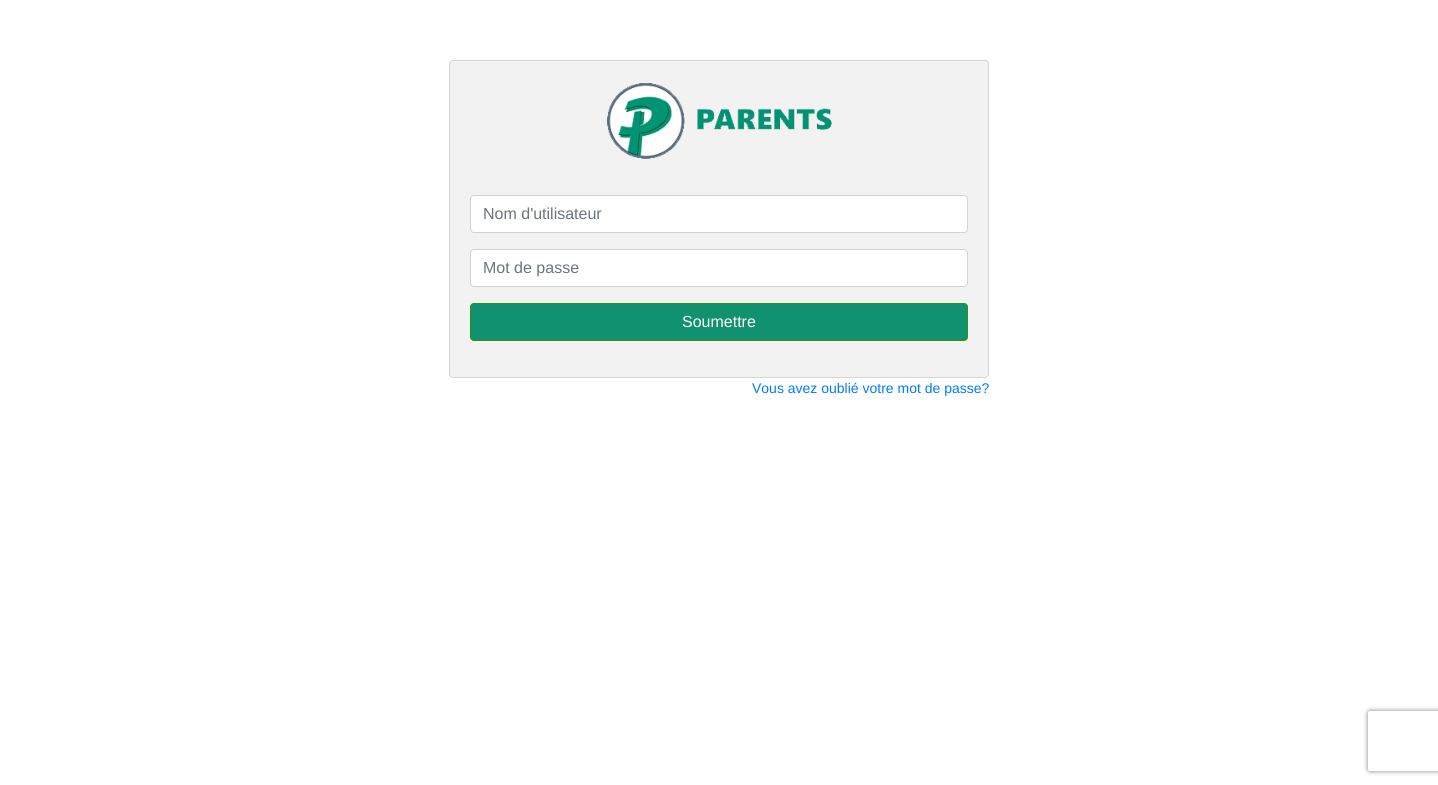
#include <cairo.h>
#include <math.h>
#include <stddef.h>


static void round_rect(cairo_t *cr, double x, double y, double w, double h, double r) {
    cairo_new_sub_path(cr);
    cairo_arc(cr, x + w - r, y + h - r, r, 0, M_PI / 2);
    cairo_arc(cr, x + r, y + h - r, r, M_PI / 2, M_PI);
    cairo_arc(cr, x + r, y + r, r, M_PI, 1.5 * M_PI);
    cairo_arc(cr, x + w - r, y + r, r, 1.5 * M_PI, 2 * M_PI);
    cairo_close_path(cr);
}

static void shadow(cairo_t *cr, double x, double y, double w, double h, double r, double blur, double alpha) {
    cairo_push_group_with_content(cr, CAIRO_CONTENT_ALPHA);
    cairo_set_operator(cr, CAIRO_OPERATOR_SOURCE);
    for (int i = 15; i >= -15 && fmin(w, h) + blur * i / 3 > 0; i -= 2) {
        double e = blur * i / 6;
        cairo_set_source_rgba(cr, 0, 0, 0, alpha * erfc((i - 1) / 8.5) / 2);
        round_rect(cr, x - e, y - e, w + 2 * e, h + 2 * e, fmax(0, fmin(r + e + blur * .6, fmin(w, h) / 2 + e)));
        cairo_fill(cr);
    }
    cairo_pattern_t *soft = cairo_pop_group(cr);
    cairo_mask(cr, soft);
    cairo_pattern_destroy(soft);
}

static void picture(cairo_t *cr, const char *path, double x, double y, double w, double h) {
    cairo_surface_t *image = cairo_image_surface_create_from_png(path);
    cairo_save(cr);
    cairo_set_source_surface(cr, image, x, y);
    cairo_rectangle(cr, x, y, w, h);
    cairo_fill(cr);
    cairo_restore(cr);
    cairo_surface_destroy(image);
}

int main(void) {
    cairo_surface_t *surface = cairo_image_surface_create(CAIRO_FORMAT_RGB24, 1438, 785);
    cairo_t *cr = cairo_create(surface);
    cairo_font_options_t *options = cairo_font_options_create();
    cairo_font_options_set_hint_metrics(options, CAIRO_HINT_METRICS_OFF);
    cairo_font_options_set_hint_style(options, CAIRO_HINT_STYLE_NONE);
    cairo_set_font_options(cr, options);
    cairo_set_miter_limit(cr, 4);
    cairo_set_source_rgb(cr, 1, 1, 1);
    cairo_paint(cr);
    cairo_set_source_rgb(cr, 0.949, 0.949, 0.949);
    round_rect(cr, 449, 60, 540, 318, 4);
    cairo_fill(cr);
    round_rect(cr, 449.5, 60.5, 539, 317, 3.5);
    cairo_set_source_rgba(cr, 0, 0, 0, 0.12);
    cairo_set_line_width(cr, 1);
    cairo_stroke(cr);
    picture(cr, "img1.png", 607, 83, 225, 76);
    cairo_set_source_rgb(cr, 1, 1, 1);
    round_rect(cr, 470.5, 195.5, 497, 37, 3.5);
    cairo_fill_preserve(cr);
    cairo_set_source_rgb(cr, 0.808, 0.831, 0.855);
    cairo_stroke(cr);
    cairo_select_font_face(cr, "Liberation Sans", CAIRO_FONT_SLANT_NORMAL, CAIRO_FONT_WEIGHT_NORMAL);
    cairo_set_font_size(cr, 16);
    cairo_set_source_rgb(cr, 0.424, 0.459, 0.49);
    cairo_move_to(cr, 483, 219);
    cairo_show_text(cr, "Nom d'utilisateur");
    cairo_set_source_rgb(cr, 1, 1, 1);
    round_rect(cr, 470.5, 249.5, 497, 37, 3.5);
    cairo_fill_preserve(cr);
    cairo_set_source_rgb(cr, 0.808, 0.831, 0.855);
    cairo_stroke(cr);
    cairo_set_source_rgb(cr, 0.424, 0.459, 0.49);
    cairo_move_to(cr, 483, 273);
    cairo_show_text(cr, "Mot de passe");
    cairo_set_source_rgb(cr, 0.063, 0.569, 0.439);
    round_rect(cr, 470.5, 303.5, 497, 37, 3.5);
    cairo_fill_preserve(cr);
    cairo_set_source_rgb(cr, 0.2, 0.569, 0.063);
    cairo_stroke(cr);
    cairo_set_source_rgb(cr, 1, 1, 1);
    cairo_move_to(cr, 682, 327);
    cairo_show_text(cr, "Soumettre");
    cairo_save(cr);
    cairo_set_fill_rule(cr, CAIRO_FILL_RULE_EVEN_ODD);
    cairo_new_path(cr);
    cairo_move_to(cr, 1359, 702);
    cairo_line_to(cr, 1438, 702);
    cairo_line_to(cr, 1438, 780);
    cairo_line_to(cr, 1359, 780);
    cairo_close_path(cr);
    cairo_move_to(cr, 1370, 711);
    cairo_line_to(cr, 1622, 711);
    cairo_curve_to(cr, 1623, 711, 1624, 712, 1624, 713);
    cairo_line_to(cr, 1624, 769);
    cairo_curve_to(cr, 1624, 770, 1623, 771, 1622, 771);
    cairo_line_to(cr, 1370, 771);
    cairo_curve_to(cr, 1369, 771, 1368, 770, 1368, 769);
    cairo_line_to(cr, 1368, 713);
    cairo_curve_to(cr, 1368, 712, 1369, 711, 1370, 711);
    cairo_close_path(cr);
    cairo_clip(cr);
    cairo_set_source_rgb(cr, 0.502, 0.502, 0.502);
    shadow(cr, 1368, 711, 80, 60, 2, 2.5, 1);
    cairo_restore(cr);
    cairo_set_font_size(cr, 14);
    cairo_set_source_rgb(cr, 0, 0.482, 1);
    cairo_move_to(cr, 752, 393);
    cairo_show_text(cr, "Vous avez oublié votre mot de passe?");
    cairo_surface_write_to_png(surface, "page.png");
    cairo_font_options_destroy(options);
    cairo_destroy(cr);
    cairo_surface_destroy(surface);
    return 0;
}
